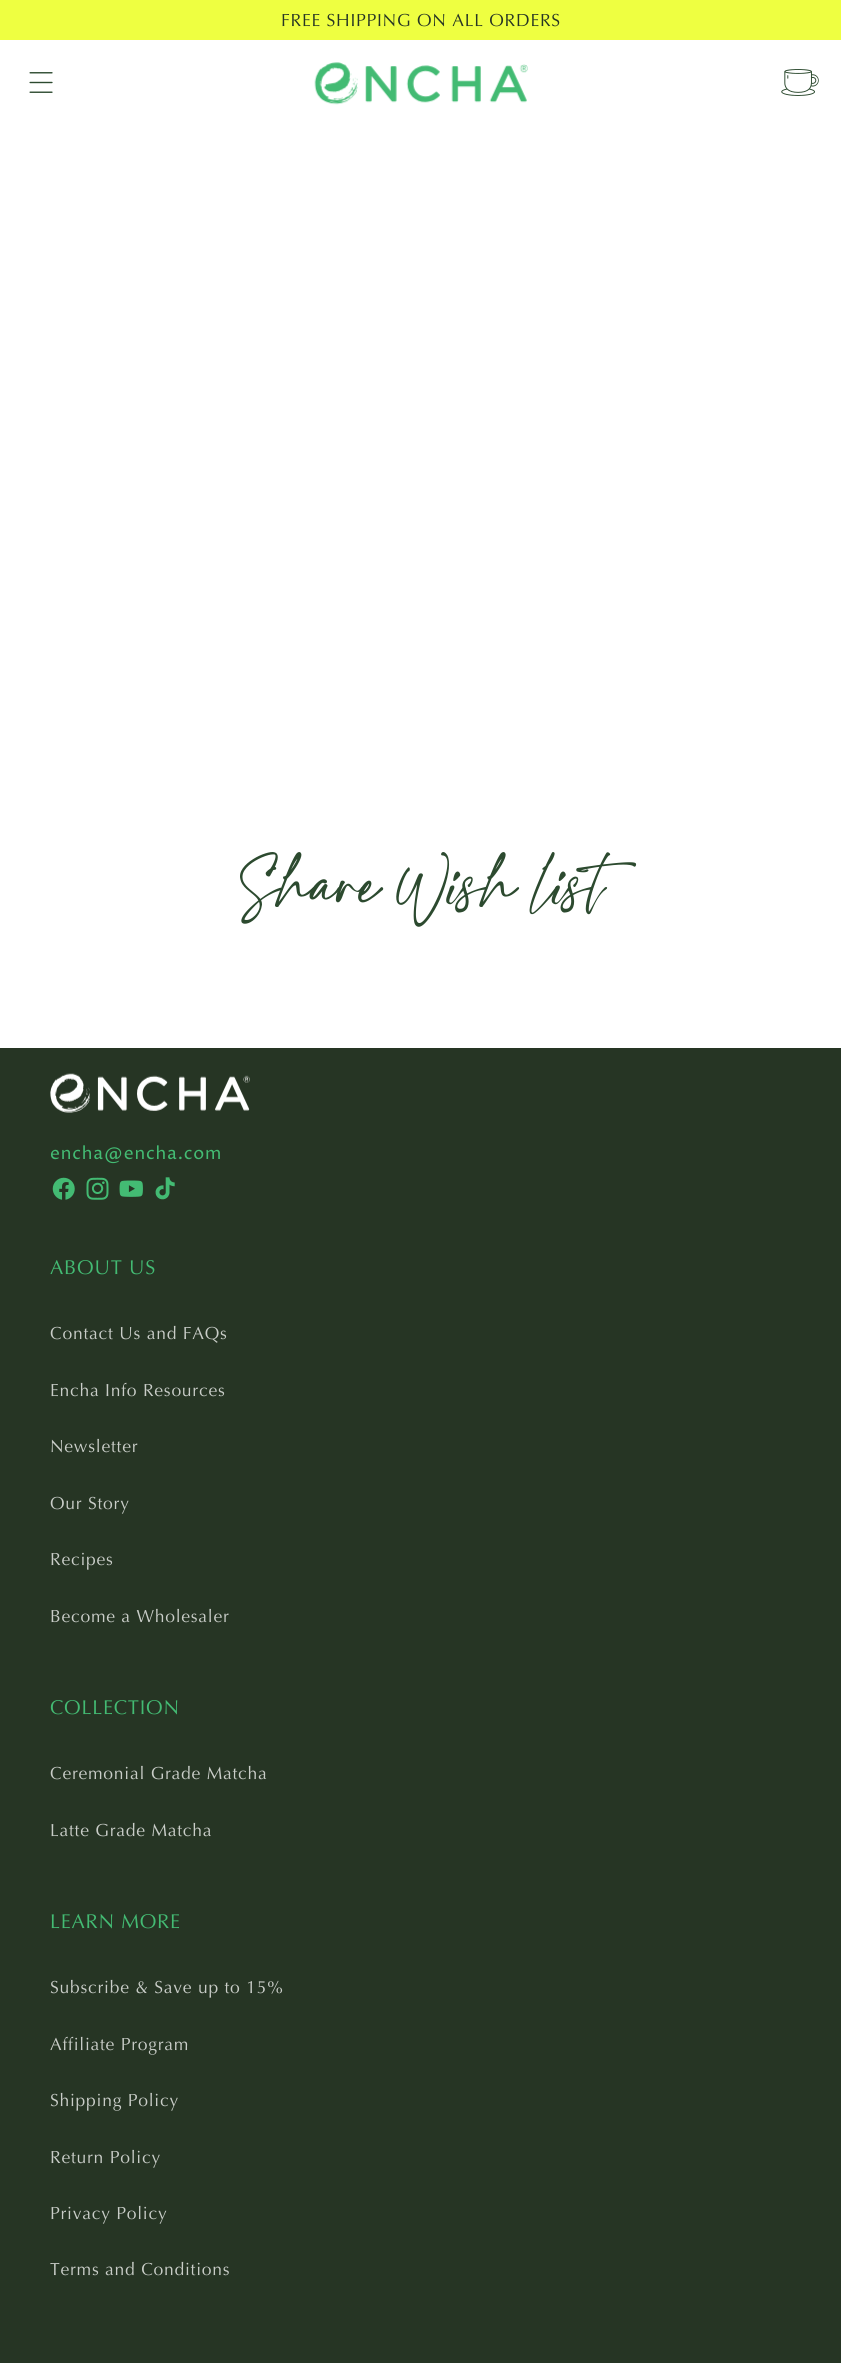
#include <cairo.h>
#include <math.h>
#include <stddef.h>


static void spaced_text(cairo_t *cr, double x, double y, const char *s, double letter, double word) {
    cairo_move_to(cr, x, y);
    while (*s) {
        char ch[5] = {0};
        int n = 0;
        do ch[n++] = *s++; while ((*s & 0xC0) == 0x80);
        cairo_show_text(cr, ch);
        cairo_rel_move_to(cr, letter + word * (*ch == ' '), 0);
    }
}

static void picture(cairo_t *cr, const char *path, double x, double y, double w, double h) {
    cairo_surface_t *image = cairo_image_surface_create_from_png(path);
    cairo_save(cr);
    cairo_set_source_surface(cr, image, x, y);
    cairo_rectangle(cr, x, y, w, h);
    cairo_fill(cr);
    cairo_restore(cr);
    cairo_surface_destroy(image);
}

int main(void) {
    cairo_surface_t *surface = cairo_image_surface_create(CAIRO_FORMAT_RGB24, 841, 2363);
    cairo_t *cr = cairo_create(surface);
    cairo_font_options_t *options = cairo_font_options_create();
    cairo_font_options_set_hint_metrics(options, CAIRO_HINT_METRICS_OFF);
    cairo_font_options_set_hint_style(options, CAIRO_HINT_STYLE_NONE);
    cairo_set_font_options(cr, options);
    cairo_set_miter_limit(cr, 4);
    cairo_set_source_rgb(cr, 1, 1, 1);
    cairo_paint(cr);
    cairo_set_source_rgb(cr, 0.933, 1, 0.255);
    cairo_rectangle(cr, 0, 0, 841, 40);
    cairo_fill(cr);
    cairo_select_font_face(cr, "Optima", CAIRO_FONT_SLANT_NORMAL, CAIRO_FONT_WEIGHT_NORMAL);
    cairo_set_font_size(cr, 17.5);
    cairo_set_source_rgb(cr, 0.149, 0.208, 0.141);
    spaced_text(cr, 281, 26, "FREE SHIPPING ON ALL ORDERS", 0.75, 0);
    picture(cr, "img1.png", 29, 72, 24, 21);
    picture(cr, "img2.png", 314, 62, 214, 43);
    picture(cr, "img3.png", 781, 69, 38, 27);
    cairo_select_font_face(cr, "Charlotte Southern", CAIRO_FONT_SLANT_NORMAL, CAIRO_FONT_WEIGHT_NORMAL);
    cairo_set_font_size(cr, 87.5);
    cairo_set_source_rgb(cr, 0.173, 0.29, 0.184);
    spaced_text(cr, 240, 922, "Share Wish list", 0.75, 0);
    cairo_set_source_rgb(cr, 0.149, 0.208, 0.141);
    cairo_rectangle(cr, 0, 1048, 841, 1315);
    cairo_fill(cr);
    picture(cr, "img4.png", 50, 1073, 200, 40);
    cairo_select_font_face(cr, "Proza Libre", CAIRO_FONT_SLANT_NORMAL, CAIRO_FONT_WEIGHT_NORMAL);
    cairo_set_font_size(cr, 17.5);
    cairo_set_source_rgb(cr, 0.263, 0.733, 0.451);
    spaced_text(cr, 50, 1159, "encha@encha.com", 0.75, 0);
    picture(cr, "img5.png", 52, 1177, 23, 23);
    picture(cr, "img6.png", 86, 1177, 23, 23);
    picture(cr, "img7.png", 119, 1180, 24, 17);
    picture(cr, "img8.png", 155, 1177, 20, 23);
    cairo_select_font_face(cr, "Optima", CAIRO_FONT_SLANT_NORMAL, CAIRO_FONT_WEIGHT_NORMAL);
    cairo_set_font_size(cr, 20);
    spaced_text(cr, 50, 1274, "ABOUT US", 0.75, 0);
    cairo_set_font_size(cr, 17.5);
    cairo_set_source_rgb(cr, 0.788, 0.804, 0.784);
    spaced_text(cr, 50, 1339, "Contact Us and FAQs", 0.75, 0);
    spaced_text(cr, 50, 1396, "Encha Info Resources", 0.75, 0);
    spaced_text(cr, 50, 1452, "Newsletter", 0.75, 0);
    spaced_text(cr, 50, 1509, "Our Story", 0.75, 0);
    spaced_text(cr, 50, 1565, "Recipes", 0.75, 0);
    spaced_text(cr, 50, 1622, "Become a Wholesaler", 0.75, 0);
    cairo_set_font_size(cr, 20);
    cairo_set_source_rgb(cr, 0.263, 0.733, 0.451);
    spaced_text(cr, 50, 1714, "COLLECTION", 0.75, 0);
    cairo_set_font_size(cr, 17.5);
    cairo_set_source_rgb(cr, 0.788, 0.804, 0.784);
    spaced_text(cr, 50, 1779, "Ceremonial Grade Matcha", 0.75, 0);
    spaced_text(cr, 50, 1836, "Latte Grade Matcha", 0.75, 0);
    cairo_set_font_size(cr, 20);
    cairo_set_source_rgb(cr, 0.263, 0.733, 0.451);
    spaced_text(cr, 50, 1928, "LEARN MORE", 0.75, 0);
    cairo_set_font_size(cr, 17.5);
    cairo_set_source_rgb(cr, 0.788, 0.804, 0.784);
    spaced_text(cr, 50, 1993, "Subscribe & Save up to 15%", 0.75, 0);
    spaced_text(cr, 50, 2050, "Affiliate Program", 0.75, 0);
    spaced_text(cr, 50, 2106, "Shipping Policy", 0.75, 0);
    spaced_text(cr, 50, 2163, "Return Policy", 0.75, 0);
    spaced_text(cr, 50, 2219, "Privacy Policy", 0.75, 0);
    spaced_text(cr, 50, 2275, "Terms and Conditions", 0.75, 0);
    cairo_surface_write_to_png(surface, "page.png");
    cairo_font_options_destroy(options);
    cairo_destroy(cr);
    cairo_surface_destroy(surface);
    return 0;
}
